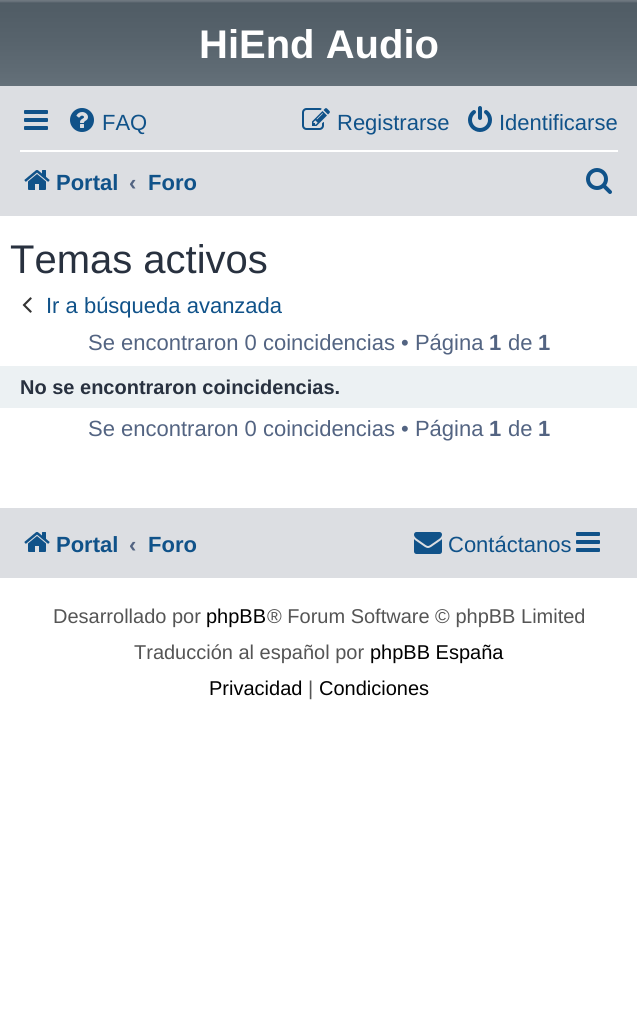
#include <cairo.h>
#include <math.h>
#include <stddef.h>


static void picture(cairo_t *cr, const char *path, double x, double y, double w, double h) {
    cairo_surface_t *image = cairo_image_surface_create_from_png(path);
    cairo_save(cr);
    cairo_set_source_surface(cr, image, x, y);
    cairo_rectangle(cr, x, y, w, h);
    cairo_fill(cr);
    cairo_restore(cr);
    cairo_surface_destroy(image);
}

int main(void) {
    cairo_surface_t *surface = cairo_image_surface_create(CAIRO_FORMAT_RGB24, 637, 1030);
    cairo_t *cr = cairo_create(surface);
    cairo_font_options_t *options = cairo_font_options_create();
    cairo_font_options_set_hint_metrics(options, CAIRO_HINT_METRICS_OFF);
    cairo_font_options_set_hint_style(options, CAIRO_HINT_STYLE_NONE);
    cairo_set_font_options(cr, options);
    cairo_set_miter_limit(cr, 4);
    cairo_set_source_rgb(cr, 1, 1, 1);
    cairo_paint(cr);
    picture(cr, "img1.png", 0, 0, 637, 86);
    cairo_select_font_face(cr, "Liberation Sans", CAIRO_FONT_SLANT_NORMAL, CAIRO_FONT_WEIGHT_BOLD);
    cairo_set_font_size(cr, 40);
    cairo_set_source_rgb(cr, 1, 1, 1);
    cairo_move_to(cr, 199, 58);
    cairo_show_text(cr, "HiEnd Audio");
    cairo_set_source_rgb(cr, 0.863, 0.871, 0.886);
    cairo_rectangle(cr, 0, 86, 637, 130);
    cairo_fill(cr);
    picture(cr, "img2.png", 24, 110, 24, 20);
    picture(cr, "img3.png", 70, 108, 24, 24);
    cairo_select_font_face(cr, "Liberation Sans", CAIRO_FONT_SLANT_NORMAL, CAIRO_FONT_WEIGHT_NORMAL);
    cairo_set_font_size(cr, 22);
    cairo_set_source_rgb(cr, 0.063, 0.322, 0.537);
    cairo_move_to(cr, 102, 130);
    cairo_show_text(cr, "FAQ");
    picture(cr, "img4.png", 302, 108, 28, 22);
    cairo_move_to(cr, 337, 130);
    cairo_show_text(cr, "Registrarse");
    picture(cr, "img5.png", 468, 106, 24, 26);
    cairo_move_to(cr, 499, 130);
    cairo_show_text(cr, "Identificarse");
    cairo_set_source_rgb(cr, 1, 1, 1);
    cairo_rectangle(cr, 20, 150, 598, 2);
    cairo_fill(cr);
    picture(cr, "img6.png", 24, 170, 26, 20);
    cairo_select_font_face(cr, "Liberation Sans", CAIRO_FONT_SLANT_NORMAL, CAIRO_FONT_WEIGHT_BOLD);
    cairo_set_source_rgb(cr, 0.063, 0.322, 0.537);
    cairo_move_to(cr, 56, 190);
    cairo_show_text(cr, "Portal");
    cairo_set_source_rgb(cr, 0.325, 0.392, 0.51);
    cairo_move_to(cr, 129, 190);
    cairo_show_text(cr, "‹");
    cairo_set_source_rgb(cr, 0.063, 0.322, 0.537);
    cairo_move_to(cr, 148, 190);
    cairo_show_text(cr, "Foro");
    picture(cr, "img7.png", 586, 168, 26, 26);
    cairo_select_font_face(cr, "Liberation Sans", CAIRO_FONT_SLANT_NORMAL, CAIRO_FONT_WEIGHT_NORMAL);
    cairo_set_font_size(cr, 40);
    cairo_set_source_rgb(cr, 0.157, 0.192, 0.247);
    cairo_move_to(cr, 10, 273);
    cairo_show_text(cr, "Temas activos");
    picture(cr, "img8.png", 22, 297, 10, 16);
    cairo_set_font_size(cr, 22);
    cairo_set_source_rgb(cr, 0.063, 0.322, 0.537);
    cairo_move_to(cr, 46, 313);
    cairo_show_text(cr, "Ir a búsqueda avanzada");
    cairo_set_source_rgb(cr, 0.325, 0.392, 0.51);
    cairo_move_to(cr, 88, 350);
    cairo_show_text(cr, "Se encontraron 0 coincidencias • Página");
    cairo_select_font_face(cr, "Liberation Sans", CAIRO_FONT_SLANT_NORMAL, CAIRO_FONT_WEIGHT_BOLD);
    cairo_move_to(cr, 489, 350);
    cairo_show_text(cr, "1");
    cairo_select_font_face(cr, "Liberation Sans", CAIRO_FONT_SLANT_NORMAL, CAIRO_FONT_WEIGHT_NORMAL);
    cairo_move_to(cr, 508, 350);
    cairo_show_text(cr, "de");
    cairo_select_font_face(cr, "Liberation Sans", CAIRO_FONT_SLANT_NORMAL, CAIRO_FONT_WEIGHT_BOLD);
    cairo_move_to(cr, 538, 350);
    cairo_show_text(cr, "1");
    cairo_set_source_rgb(cr, 0.925, 0.945, 0.953);
    cairo_rectangle(cr, 0, 366, 637, 42);
    cairo_fill(cr);
    cairo_set_font_size(cr, 20);
    cairo_set_source_rgb(cr, 0.157, 0.192, 0.247);
    cairo_move_to(cr, 20, 394);
    cairo_show_text(cr, "No se encontraron coincidencias.");
    cairo_select_font_face(cr, "Liberation Sans", CAIRO_FONT_SLANT_NORMAL, CAIRO_FONT_WEIGHT_NORMAL);
    cairo_set_font_size(cr, 22);
    cairo_set_source_rgb(cr, 0.325, 0.392, 0.51);
    cairo_move_to(cr, 88, 436);
    cairo_show_text(cr, "Se encontraron 0 coincidencias • Página");
    cairo_select_font_face(cr, "Liberation Sans", CAIRO_FONT_SLANT_NORMAL, CAIRO_FONT_WEIGHT_BOLD);
    cairo_move_to(cr, 489, 436);
    cairo_show_text(cr, "1");
    cairo_select_font_face(cr, "Liberation Sans", CAIRO_FONT_SLANT_NORMAL, CAIRO_FONT_WEIGHT_NORMAL);
    cairo_move_to(cr, 508, 436);
    cairo_show_text(cr, "de");
    cairo_select_font_face(cr, "Liberation Sans", CAIRO_FONT_SLANT_NORMAL, CAIRO_FONT_WEIGHT_BOLD);
    cairo_move_to(cr, 538, 436);
    cairo_show_text(cr, "1");
    cairo_set_source_rgb(cr, 0.863, 0.871, 0.886);
    cairo_rectangle(cr, 0, 508, 637, 70);
    cairo_fill(cr);
    picture(cr, "img6.png", 24, 532, 26, 20);
    cairo_set_source_rgb(cr, 0.063, 0.322, 0.537);
    cairo_move_to(cr, 56, 552);
    cairo_show_text(cr, "Portal");
    cairo_set_source_rgb(cr, 0.325, 0.392, 0.51);
    cairo_move_to(cr, 129, 552);
    cairo_show_text(cr, "‹");
    cairo_set_source_rgb(cr, 0.063, 0.322, 0.537);
    cairo_move_to(cr, 148, 552);
    cairo_show_text(cr, "Foro");
    picture(cr, "img9.png", 414, 532, 28, 22);
    cairo_select_font_face(cr, "Liberation Sans", CAIRO_FONT_SLANT_NORMAL, CAIRO_FONT_WEIGHT_NORMAL);
    cairo_move_to(cr, 448, 552);
    cairo_show_text(cr, "Contáctanos");
    picture(cr, "img2.png", 576, 532, 24, 20);
    cairo_set_font_size(cr, 20);
    cairo_set_source_rgb(cr, 0.333, 0.333, 0.333);
    cairo_move_to(cr, 53, 623);
    cairo_show_text(cr, "Desarrollado por");
    cairo_set_source_rgb(cr, 0, 0, 0);
    cairo_move_to(cr, 206, 623);
    cairo_show_text(cr, "phpBB");
    cairo_set_source_rgb(cr, 0.333, 0.333, 0.333);
    cairo_move_to(cr, 267, 623);
    cairo_show_text(cr, "® Forum Software © phpBB Limited");
    cairo_move_to(cr, 134, 659);
    cairo_show_text(cr, "Traducción al español por");
    cairo_set_source_rgb(cr, 0, 0, 0);
    cairo_move_to(cr, 370, 659);
    cairo_show_text(cr, "phpBB España");
    cairo_move_to(cr, 209, 695);
    cairo_show_text(cr, "Privacidad");
    cairo_set_source_rgb(cr, 0.333, 0.333, 0.333);
    cairo_move_to(cr, 308, 695);
    cairo_show_text(cr, "|");
    cairo_set_source_rgb(cr, 0, 0, 0);
    cairo_move_to(cr, 319, 695);
    cairo_show_text(cr, "Condiciones");
    cairo_surface_write_to_png(surface, "page.png");
    cairo_font_options_destroy(options);
    cairo_destroy(cr);
    cairo_surface_destroy(surface);
    return 0;
}
